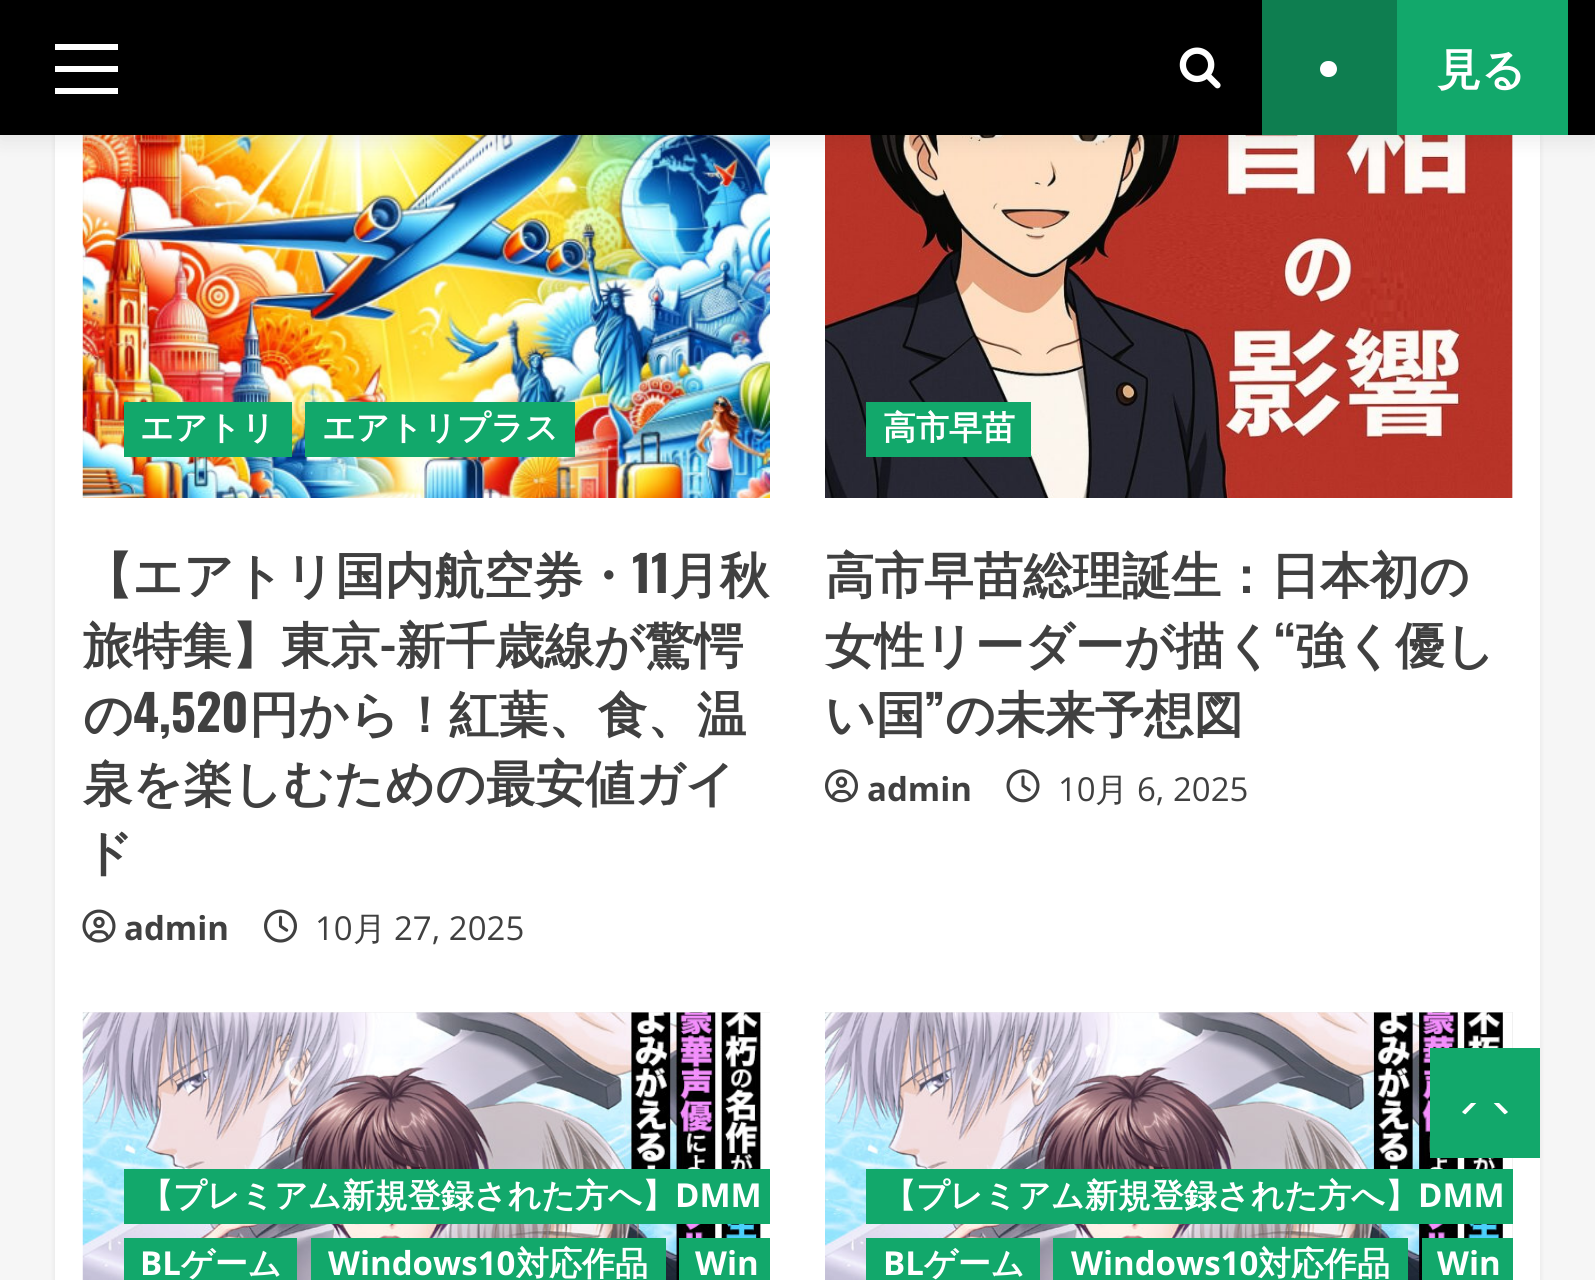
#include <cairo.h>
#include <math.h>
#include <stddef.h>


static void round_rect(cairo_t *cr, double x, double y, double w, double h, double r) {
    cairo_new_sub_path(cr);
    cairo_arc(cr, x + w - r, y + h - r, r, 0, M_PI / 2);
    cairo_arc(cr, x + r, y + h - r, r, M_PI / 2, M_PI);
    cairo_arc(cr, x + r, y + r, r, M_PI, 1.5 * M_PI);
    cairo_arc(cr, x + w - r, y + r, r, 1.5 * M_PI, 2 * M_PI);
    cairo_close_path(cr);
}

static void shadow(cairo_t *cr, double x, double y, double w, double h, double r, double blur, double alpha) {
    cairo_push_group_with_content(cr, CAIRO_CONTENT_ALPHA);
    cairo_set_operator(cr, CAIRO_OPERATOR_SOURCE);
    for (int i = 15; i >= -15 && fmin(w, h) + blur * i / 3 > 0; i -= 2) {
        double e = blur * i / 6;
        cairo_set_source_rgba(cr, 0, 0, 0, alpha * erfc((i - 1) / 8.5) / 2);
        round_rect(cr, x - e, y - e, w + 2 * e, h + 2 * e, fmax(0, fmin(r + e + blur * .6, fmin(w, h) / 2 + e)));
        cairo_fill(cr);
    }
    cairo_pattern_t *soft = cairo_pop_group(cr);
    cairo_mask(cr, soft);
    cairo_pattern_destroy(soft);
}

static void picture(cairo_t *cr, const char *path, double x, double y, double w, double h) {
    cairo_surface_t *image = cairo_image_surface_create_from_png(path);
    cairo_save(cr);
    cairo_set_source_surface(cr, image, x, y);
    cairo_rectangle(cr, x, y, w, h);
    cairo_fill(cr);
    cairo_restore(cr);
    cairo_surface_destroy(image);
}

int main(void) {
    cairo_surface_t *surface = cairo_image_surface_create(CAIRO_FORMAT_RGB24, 1595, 1280);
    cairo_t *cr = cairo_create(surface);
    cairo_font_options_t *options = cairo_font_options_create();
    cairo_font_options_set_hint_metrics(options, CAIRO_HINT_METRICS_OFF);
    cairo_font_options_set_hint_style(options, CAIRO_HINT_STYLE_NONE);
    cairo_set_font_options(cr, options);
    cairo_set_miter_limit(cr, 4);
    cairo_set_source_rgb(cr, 0.961, 0.961, 0.961);
    cairo_paint(cr);
    cairo_set_source_rgb(cr, 0, 0, 0);
    shadow(cr, 55, -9, 1485, 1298, 0, 3, 0.08);
    cairo_set_source_rgb(cr, 1, 1, 1);
    cairo_rectangle(cr, 55, 135, 1485, 1145);
    cairo_fill(cr);
    picture(cr, "img2.png", 82, 135, 688, 363);
    cairo_set_source_rgb(cr, 0.925, 0.925, 0.925);
    cairo_rectangle(cr, 1512, 135, 1, 363);
    cairo_fill(cr);
    picture(cr, "img5.png", 825, 135, 688, 363);
    cairo_set_source_rgb(cr, 0, 0, 0);
    shadow(cr, 0, 6, 1595, 134, 0, 11, 0.08);
    cairo_set_source_rgb(cr, 0, 0, 0);
    cairo_rectangle(cr, 0, 0, 1595, 135);
    cairo_fill(cr);
    cairo_set_source_rgb(cr, 1, 1, 1);
    cairo_rectangle(cr, 55, 66, 63, 6);
    cairo_fill(cr);
    cairo_rectangle(cr, 55, 44, 63, 6);
    cairo_fill(cr);
    cairo_rectangle(cr, 55, 88, 63, 6);
    cairo_fill(cr);
    picture(cr, "img1.png", 1179, 47, 42, 42);
    cairo_set_source_rgb(cr, 0.071, 0.659, 0.42);
    cairo_rectangle(cr, 1397, 0, 171, 135);
    cairo_fill(cr);
    cairo_set_source_rgb(cr, 0.055, 0.494, 0.314);
    cairo_rectangle(cr, 1262, 0, 135, 135);
    cairo_fill(cr);
    cairo_set_source_rgb(cr, 1, 1, 1);
    round_rect(cr, 1320, 61, 17, 16, 8);
    cairo_fill(cr);
    cairo_select_font_face(cr, "WenQuanYi Zen Hei", CAIRO_FONT_SLANT_NORMAL, CAIRO_FONT_WEIGHT_BOLD);
    cairo_set_font_size(cr, 44);
    cairo_move_to(cr, 1437, 85);
    cairo_show_text(cr, "見る");
    cairo_set_source_rgb(cr, 0.071, 0.659, 0.42);
    cairo_rectangle(cr, 124, 402, 168, 55);
    cairo_fill(cr);
    cairo_set_font_size(cr, 33);
    cairo_set_source_rgb(cr, 1, 1, 1);
    cairo_move_to(cr, 140, 439);
    cairo_show_text(cr, "エアトリ");
    cairo_set_source_rgb(cr, 0.071, 0.659, 0.42);
    cairo_rectangle(cr, 305, 402, 270, 55);
    cairo_fill(cr);
    cairo_set_source_rgb(cr, 1, 1, 1);
    cairo_move_to(cr, 322, 439);
    cairo_show_text(cr, "エアトリプラス");
    cairo_set_font_size(cr, 49.5);
    cairo_set_source_rgb(cr, 0.251, 0.251, 0.251);
    cairo_move_to(cr, 83, 593);
    cairo_show_text(cr, "【エアトリ国内航空券・");
    cairo_select_font_face(cr, "Oswald", CAIRO_FONT_SLANT_NORMAL, CAIRO_FONT_WEIGHT_BOLD);
    cairo_move_to(cr, 632, 593);
    cairo_show_text(cr, "11");
    cairo_select_font_face(cr, "WenQuanYi Zen Hei", CAIRO_FONT_SLANT_NORMAL, CAIRO_FONT_WEIGHT_BOLD);
    cairo_move_to(cr, 670, 593);
    cairo_show_text(cr, "月秋");
    cairo_move_to(cr, 83, 663);
    cairo_show_text(cr, "旅特集】東京");
    cairo_select_font_face(cr, "Oswald", CAIRO_FONT_SLANT_NORMAL, CAIRO_FONT_WEIGHT_BOLD);
    cairo_move_to(cr, 380, 663);
    cairo_show_text(cr, "-");
    cairo_select_font_face(cr, "WenQuanYi Zen Hei", CAIRO_FONT_SLANT_NORMAL, CAIRO_FONT_WEIGHT_BOLD);
    cairo_move_to(cr, 396, 663);
    cairo_show_text(cr, "新千歳線が驚愕");
    cairo_move_to(cr, 83, 732);
    cairo_show_text(cr, "の");
    cairo_select_font_face(cr, "Oswald", CAIRO_FONT_SLANT_NORMAL, CAIRO_FONT_WEIGHT_BOLD);
    cairo_move_to(cr, 133, 732);
    cairo_show_text(cr, "4,520");
    cairo_select_font_face(cr, "WenQuanYi Zen Hei", CAIRO_FONT_SLANT_NORMAL, CAIRO_FONT_WEIGHT_BOLD);
    cairo_move_to(cr, 249, 732);
    cairo_show_text(cr, "円から！紅葉、食、温");
    cairo_move_to(cr, 83, 801);
    cairo_show_text(cr, "泉を楽しむための最安値ガイ");
    cairo_move_to(cr, 83, 870);
    cairo_show_text(cr, "ド");
    picture(cr, "img3.png", 82, 909, 34, 34);
    cairo_select_font_face(cr, "Open Sans", CAIRO_FONT_SLANT_NORMAL, CAIRO_FONT_WEIGHT_BOLD);
    cairo_set_font_size(cr, 33);
    cairo_move_to(cr, 124, 940);
    cairo_show_text(cr, "admin");
    picture(cr, "img4.png", 264, 909, 33, 34);
    cairo_select_font_face(cr, "Open Sans", CAIRO_FONT_SLANT_NORMAL, CAIRO_FONT_WEIGHT_NORMAL);
    cairo_move_to(cr, 315, 940);
    cairo_show_text(cr, "10");
    cairo_select_font_face(cr, "WenQuanYi Zen Hei Medium", CAIRO_FONT_SLANT_NORMAL, CAIRO_FONT_WEIGHT_NORMAL);
    cairo_move_to(cr, 353, 940);
    cairo_show_text(cr, "月");
    cairo_select_font_face(cr, "Open Sans", CAIRO_FONT_SLANT_NORMAL, CAIRO_FONT_WEIGHT_NORMAL);
    cairo_move_to(cr, 394, 940);
    cairo_show_text(cr, "27, 2025");
    cairo_set_source_rgb(cr, 0.071, 0.659, 0.42);
    cairo_rectangle(cr, 866, 402, 165, 55);
    cairo_fill(cr);
    cairo_select_font_face(cr, "WenQuanYi Zen Hei", CAIRO_FONT_SLANT_NORMAL, CAIRO_FONT_WEIGHT_BOLD);
    cairo_set_source_rgb(cr, 1, 1, 1);
    cairo_move_to(cr, 883, 439);
    cairo_show_text(cr, "高市早苗");
    cairo_set_font_size(cr, 49.5);
    cairo_set_source_rgb(cr, 0.251, 0.251, 0.251);
    cairo_move_to(cr, 825, 593);
    cairo_show_text(cr, "高市早苗総理誕生：日本初の");
    cairo_move_to(cr, 825, 663);
    cairo_show_text(cr, "女性リーダーが描く");
    cairo_select_font_face(cr, "Oswald", CAIRO_FONT_SLANT_NORMAL, CAIRO_FONT_WEIGHT_BOLD);
    cairo_move_to(cr, 1275, 663);
    cairo_show_text(cr, "“");
    cairo_select_font_face(cr, "WenQuanYi Zen Hei", CAIRO_FONT_SLANT_NORMAL, CAIRO_FONT_WEIGHT_BOLD);
    cairo_move_to(cr, 1295, 663);
    cairo_show_text(cr, "強く優し");
    cairo_move_to(cr, 825, 732);
    cairo_show_text(cr, "い国");
    cairo_select_font_face(cr, "Oswald", CAIRO_FONT_SLANT_NORMAL, CAIRO_FONT_WEIGHT_BOLD);
    cairo_move_to(cr, 925, 732);
    cairo_show_text(cr, "”");
    cairo_select_font_face(cr, "WenQuanYi Zen Hei", CAIRO_FONT_SLANT_NORMAL, CAIRO_FONT_WEIGHT_BOLD);
    cairo_move_to(cr, 945, 732);
    cairo_show_text(cr, "の未来予想図");
    picture(cr, "img6.png", 825, 769, 33, 34);
    cairo_select_font_face(cr, "Open Sans", CAIRO_FONT_SLANT_NORMAL, CAIRO_FONT_WEIGHT_BOLD);
    cairo_set_font_size(cr, 33);
    cairo_move_to(cr, 867, 801);
    cairo_show_text(cr, "admin");
    picture(cr, "img7.png", 1006, 769, 34, 34);
    cairo_select_font_face(cr, "Open Sans", CAIRO_FONT_SLANT_NORMAL, CAIRO_FONT_WEIGHT_NORMAL);
    cairo_move_to(cr, 1058, 801);
    cairo_show_text(cr, "10");
    cairo_select_font_face(cr, "WenQuanYi Zen Hei Medium", CAIRO_FONT_SLANT_NORMAL, CAIRO_FONT_WEIGHT_NORMAL);
    cairo_move_to(cr, 1095, 801);
    cairo_show_text(cr, "月");
    cairo_select_font_face(cr, "Open Sans", CAIRO_FONT_SLANT_NORMAL, CAIRO_FONT_WEIGHT_NORMAL);
    cairo_move_to(cr, 1137, 801);
    cairo_show_text(cr, "6, 2025");
    cairo_set_source_rgb(cr, 0.925, 0.925, 0.925);
    cairo_rectangle(cr, 83, 1012, 687, 1);
    cairo_fill(cr);
    picture(cr, "img8.png", 82, 1012, 688, 268);
    cairo_set_source_rgb(cr, 0.071, 0.659, 0.42);
    cairo_rectangle(cr, 124, 1169, 646, 55);
    cairo_fill(cr);
    cairo_select_font_face(cr, "WenQuanYi Zen Hei", CAIRO_FONT_SLANT_NORMAL, CAIRO_FONT_WEIGHT_BOLD);
    cairo_set_source_rgb(cr, 1, 1, 1);
    cairo_move_to(cr, 140, 1207);
    cairo_show_text(cr, "【プレミアム新規登録された方へ】");
    cairo_select_font_face(cr, "Open Sans", CAIRO_FONT_SLANT_NORMAL, CAIRO_FONT_WEIGHT_BOLD);
    cairo_move_to(cr, 675, 1207);
    cairo_show_text(cr, "DMM");
    cairo_set_source_rgb(cr, 0.071, 0.659, 0.42);
    cairo_rectangle(cr, 124, 1238, 173, 42);
    cairo_fill(cr);
    cairo_set_source_rgb(cr, 1, 1, 1);
    cairo_move_to(cr, 140, 1275);
    cairo_show_text(cr, "BL");
    cairo_select_font_face(cr, "WenQuanYi Zen Hei", CAIRO_FONT_SLANT_NORMAL, CAIRO_FONT_WEIGHT_BOLD);
    cairo_move_to(cr, 181, 1275);
    cairo_show_text(cr, "ゲーム");
    cairo_set_source_rgb(cr, 0.071, 0.659, 0.42);
    cairo_rectangle(cr, 311, 1238, 355, 42);
    cairo_fill(cr);
    cairo_select_font_face(cr, "Open Sans", CAIRO_FONT_SLANT_NORMAL, CAIRO_FONT_WEIGHT_BOLD);
    cairo_set_source_rgb(cr, 1, 1, 1);
    cairo_move_to(cr, 328, 1275);
    cairo_show_text(cr, "Windows10");
    cairo_select_font_face(cr, "WenQuanYi Zen Hei", CAIRO_FONT_SLANT_NORMAL, CAIRO_FONT_WEIGHT_BOLD);
    cairo_move_to(cr, 516, 1275);
    cairo_show_text(cr, "対応作品");
    cairo_set_source_rgb(cr, 0.071, 0.659, 0.42);
    cairo_rectangle(cr, 679, 1238, 91, 42);
    cairo_fill(cr);
    cairo_select_font_face(cr, "Open Sans", CAIRO_FONT_SLANT_NORMAL, CAIRO_FONT_WEIGHT_BOLD);
    cairo_set_source_rgb(cr, 1, 1, 1);
    cairo_move_to(cr, 695, 1275);
    cairo_show_text(cr, "Win");
    cairo_set_source_rgb(cr, 0.925, 0.925, 0.925);
    cairo_rectangle(cr, 825, 1012, 688, 226);
    cairo_fill(cr);
    picture(cr, "img9.png", 825, 1012, 688, 268);
    cairo_set_source_rgb(cr, 0.071, 0.659, 0.42);
    cairo_rectangle(cr, 866, 1169, 647, 55);
    cairo_fill(cr);
    cairo_select_font_face(cr, "WenQuanYi Zen Hei", CAIRO_FONT_SLANT_NORMAL, CAIRO_FONT_WEIGHT_BOLD);
    cairo_set_source_rgb(cr, 1, 1, 1);
    cairo_move_to(cr, 883, 1207);
    cairo_show_text(cr, "【プレミアム新規登録された方へ】");
    cairo_select_font_face(cr, "Open Sans", CAIRO_FONT_SLANT_NORMAL, CAIRO_FONT_WEIGHT_BOLD);
    cairo_move_to(cr, 1418, 1207);
    cairo_show_text(cr, "DMM");
    cairo_set_source_rgb(cr, 0.071, 0.659, 0.42);
    cairo_rectangle(cr, 866, 1238, 174, 42);
    cairo_fill(cr);
    cairo_set_source_rgb(cr, 1, 1, 1);
    cairo_move_to(cr, 883, 1275);
    cairo_show_text(cr, "BL");
    cairo_select_font_face(cr, "WenQuanYi Zen Hei", CAIRO_FONT_SLANT_NORMAL, CAIRO_FONT_WEIGHT_BOLD);
    cairo_move_to(cr, 924, 1275);
    cairo_show_text(cr, "ゲーム");
    cairo_set_source_rgb(cr, 0.071, 0.659, 0.42);
    cairo_rectangle(cr, 1053, 1238, 355, 42);
    cairo_fill(cr);
    cairo_select_font_face(cr, "Open Sans", CAIRO_FONT_SLANT_NORMAL, CAIRO_FONT_WEIGHT_BOLD);
    cairo_set_source_rgb(cr, 1, 1, 1);
    cairo_move_to(cr, 1071, 1275);
    cairo_show_text(cr, "Windows10");
    cairo_select_font_face(cr, "WenQuanYi Zen Hei", CAIRO_FONT_SLANT_NORMAL, CAIRO_FONT_WEIGHT_BOLD);
    cairo_move_to(cr, 1258, 1275);
    cairo_show_text(cr, "対応作品");
    cairo_set_source_rgb(cr, 0.071, 0.659, 0.42);
    cairo_rectangle(cr, 1422, 1238, 91, 42);
    cairo_fill(cr);
    cairo_select_font_face(cr, "Open Sans", CAIRO_FONT_SLANT_NORMAL, CAIRO_FONT_WEIGHT_BOLD);
    cairo_set_source_rgb(cr, 1, 1, 1);
    cairo_move_to(cr, 1437, 1275);
    cairo_show_text(cr, "Win");
    cairo_set_source_rgb(cr, 0.071, 0.659, 0.42);
    cairo_rectangle(cr, 1430, 1048, 110, 110);
    cairo_fill(cr);
    cairo_set_source_rgb(cr, 1, 1, 1);
    cairo_new_path(cr);
    cairo_move_to(cr, 1508, 1112);
    cairo_curve_to(cr, 1502, 1118, 1492, 1116, 1485, 1116);
    cairo_curve_to(cr, 1478, 1116, 1468, 1118, 1462, 1112);
    cairo_line_to(cr, 1471, 1103);
    cairo_line_to(cr, 1499, 1103);
    cairo_close_path(cr);
    cairo_fill(cr);
    cairo_set_source_rgb(cr, 0.071, 0.659, 0.42);
    cairo_new_path(cr);
    cairo_move_to(cr, 1512, 1122);
    cairo_line_to(cr, 1458, 1122);
    cairo_line_to(cr, 1485, 1094);
    cairo_close_path(cr);
    cairo_fill(cr);
    cairo_surface_write_to_png(surface, "page.png");
    cairo_font_options_destroy(options);
    cairo_destroy(cr);
    cairo_surface_destroy(surface);
    return 0;
}
